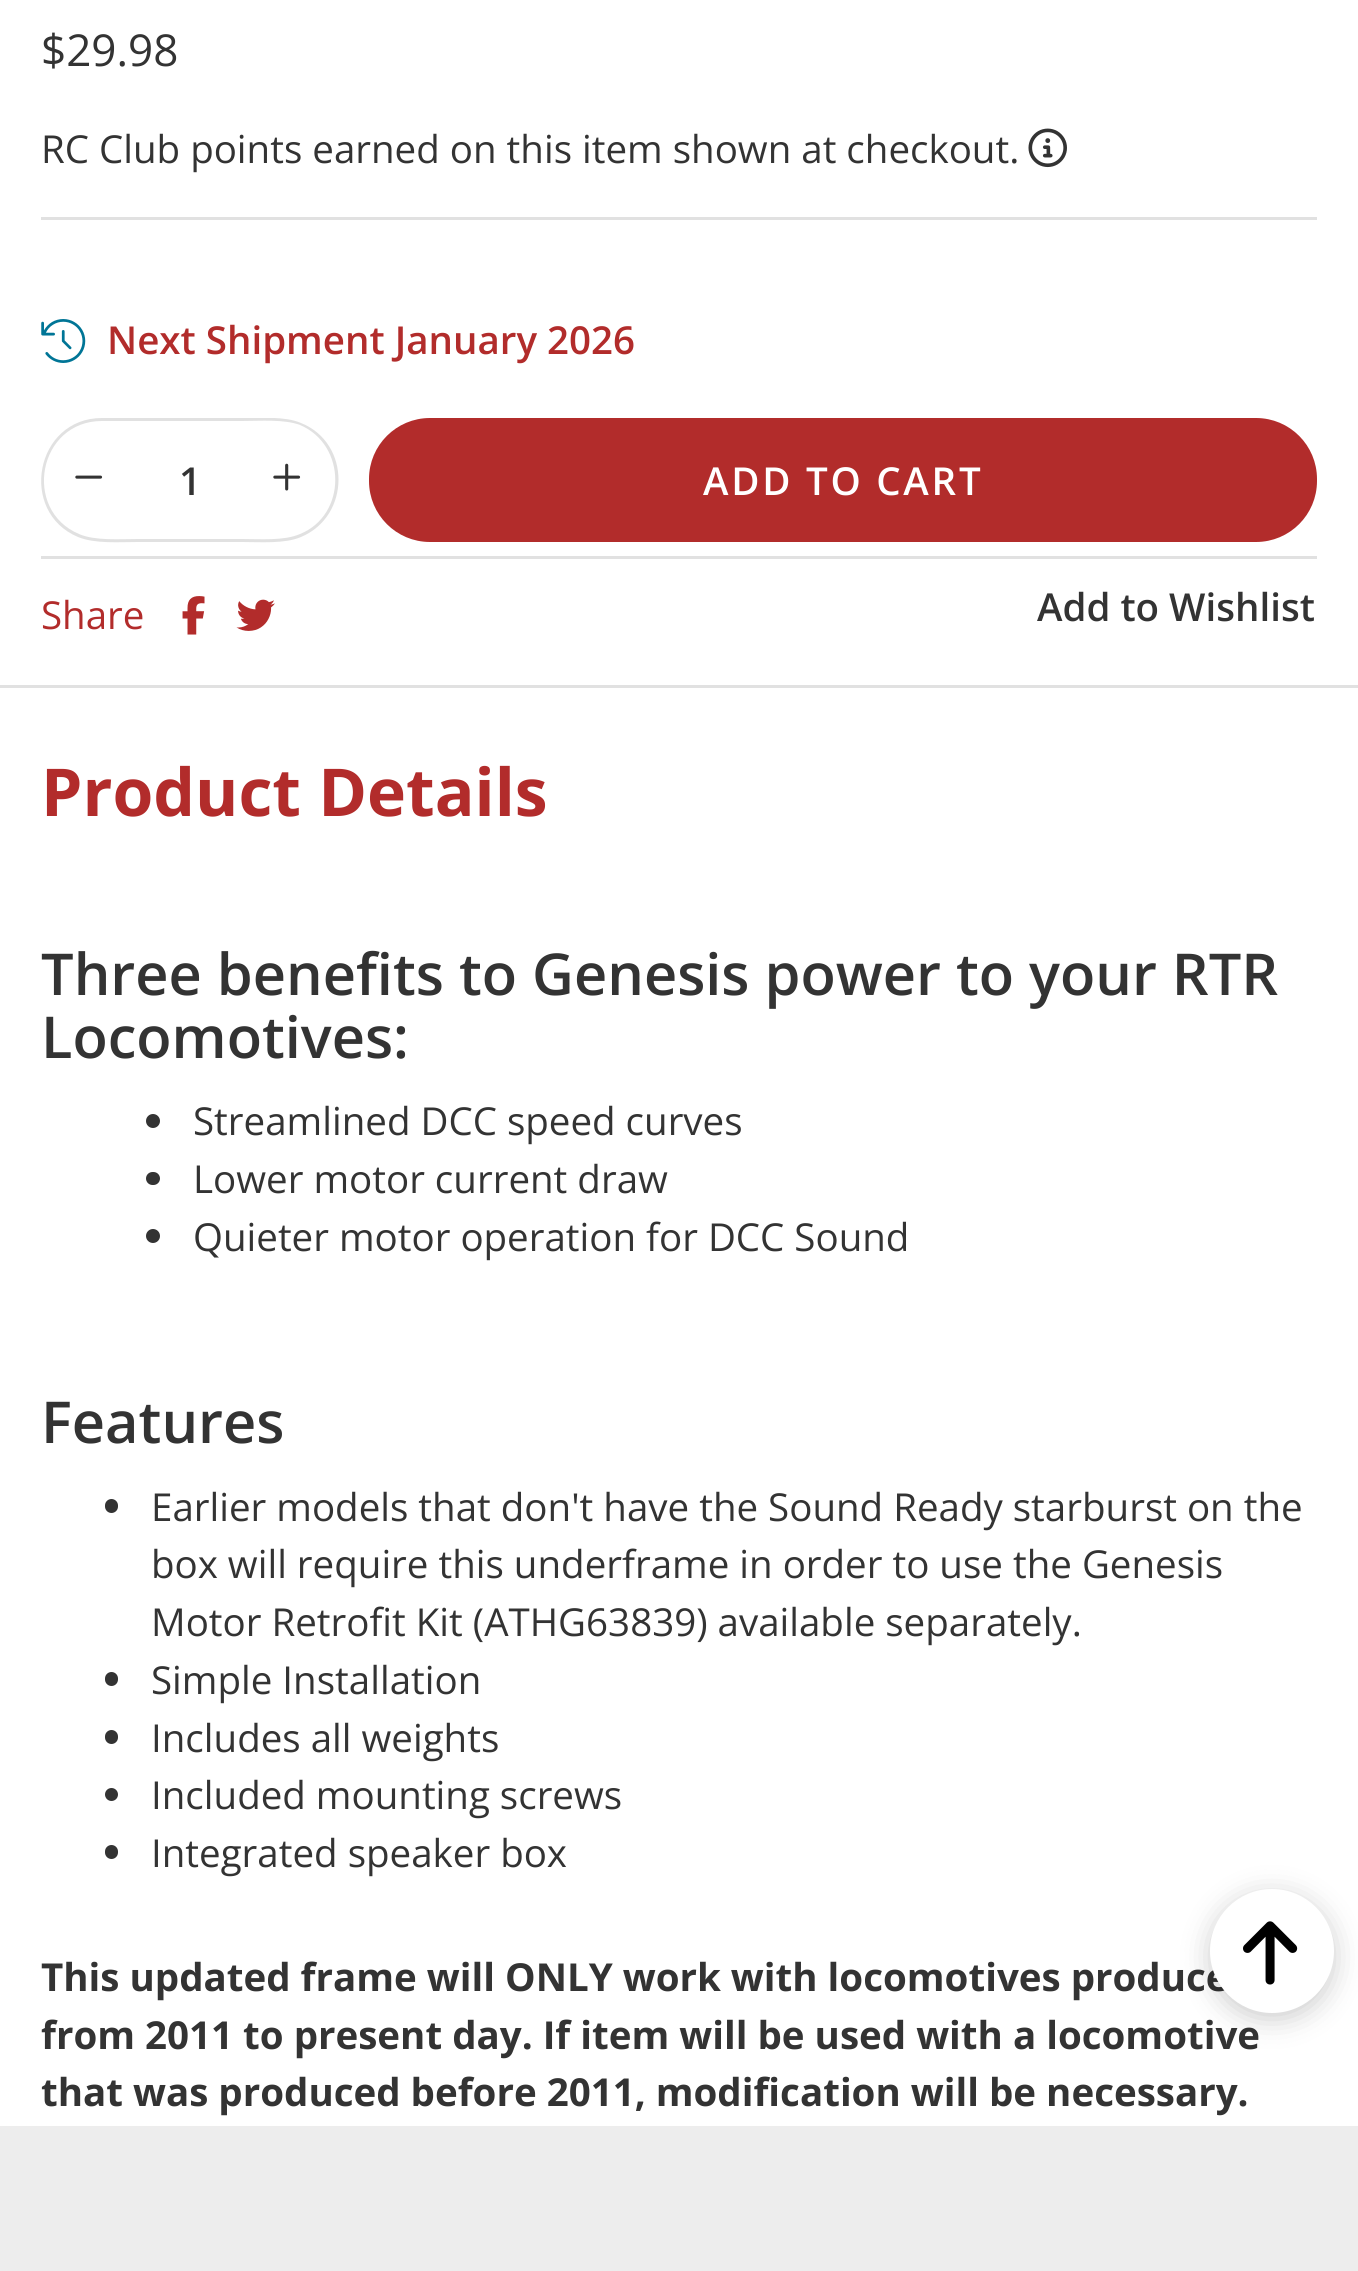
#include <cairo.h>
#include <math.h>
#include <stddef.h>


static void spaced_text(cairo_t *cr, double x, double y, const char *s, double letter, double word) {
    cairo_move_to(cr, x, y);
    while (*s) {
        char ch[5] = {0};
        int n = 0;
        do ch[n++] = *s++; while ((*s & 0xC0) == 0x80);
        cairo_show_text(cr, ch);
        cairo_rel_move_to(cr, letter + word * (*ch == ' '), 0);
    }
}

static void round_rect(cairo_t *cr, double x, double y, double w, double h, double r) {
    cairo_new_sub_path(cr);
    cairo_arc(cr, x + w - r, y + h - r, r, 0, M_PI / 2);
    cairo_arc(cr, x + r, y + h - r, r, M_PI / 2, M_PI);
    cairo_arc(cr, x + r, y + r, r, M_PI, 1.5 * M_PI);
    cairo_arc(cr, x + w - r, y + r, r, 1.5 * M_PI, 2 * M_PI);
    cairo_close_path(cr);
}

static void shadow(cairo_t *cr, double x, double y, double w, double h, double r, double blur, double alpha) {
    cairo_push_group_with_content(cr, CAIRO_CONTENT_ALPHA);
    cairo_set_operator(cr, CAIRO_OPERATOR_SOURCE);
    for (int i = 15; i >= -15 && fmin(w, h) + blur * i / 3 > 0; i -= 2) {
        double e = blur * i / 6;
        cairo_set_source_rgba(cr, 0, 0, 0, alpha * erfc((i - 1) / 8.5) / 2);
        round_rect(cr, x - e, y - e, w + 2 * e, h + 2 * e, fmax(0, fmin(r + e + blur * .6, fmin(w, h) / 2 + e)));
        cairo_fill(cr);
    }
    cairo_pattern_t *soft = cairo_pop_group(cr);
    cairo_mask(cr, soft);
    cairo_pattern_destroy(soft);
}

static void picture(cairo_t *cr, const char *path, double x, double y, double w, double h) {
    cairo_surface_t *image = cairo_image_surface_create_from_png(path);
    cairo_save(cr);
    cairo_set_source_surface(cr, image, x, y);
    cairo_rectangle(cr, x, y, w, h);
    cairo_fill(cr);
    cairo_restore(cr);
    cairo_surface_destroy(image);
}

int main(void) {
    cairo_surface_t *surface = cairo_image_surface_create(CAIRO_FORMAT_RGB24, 1358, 2271);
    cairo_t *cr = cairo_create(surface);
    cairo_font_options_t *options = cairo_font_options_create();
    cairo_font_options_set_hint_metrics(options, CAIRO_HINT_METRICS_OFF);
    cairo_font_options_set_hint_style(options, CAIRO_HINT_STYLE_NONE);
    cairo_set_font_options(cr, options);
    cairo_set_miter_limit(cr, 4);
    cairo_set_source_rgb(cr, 1, 1, 1);
    cairo_paint(cr);
    cairo_set_source_rgb(cr, 0.882, 0.882, 0.882);
    cairo_rectangle(cr, 0, 685, 1358, 3);
    cairo_fill(cr);
    cairo_select_font_face(cr, "Open Sans", CAIRO_FONT_SLANT_NORMAL, CAIRO_FONT_WEIGHT_NORMAL);
    cairo_set_font_size(cr, 44);
    cairo_set_source_rgb(cr, 0.2, 0.2, 0.2);
    cairo_move_to(cr, 41, 66);
    cairo_show_text(cr, "$29.98");
    cairo_set_font_size(cr, 38.5);
    cairo_move_to(cr, 41, 163);
    cairo_show_text(cr, "RC Club points earned on this item shown at checkout.");
    picture(cr, "img1.png", 1028, 128, 39, 40);
    cairo_set_source_rgb(cr, 0.882, 0.882, 0.882);
    cairo_rectangle(cr, 41, 217, 1276, 3);
    cairo_fill(cr);
    picture(cr, "img2.png", 41, 319, 45, 44);
    cairo_select_font_face(cr, "Open Sans SemiBold", CAIRO_FONT_SLANT_NORMAL, CAIRO_FONT_WEIGHT_NORMAL);
    cairo_set_source_rgb(cr, 0.698, 0.173, 0.169);
    cairo_move_to(cr, 107, 354);
    cairo_show_text(cr, "Next Shipment January 2026");
    cairo_set_source_rgb(cr, 0.882, 0.882, 0.882);
    cairo_rectangle(cr, 41, 556, 1276, 3);
    cairo_fill(cr);
    cairo_rectangle(cr, 135, 418, 110, 3);
    cairo_fill(cr);
    cairo_rectangle(cr, 135, 539, 110, 3);
    cairo_fill(cr);
    cairo_set_source_rgb(cr, 1, 1, 1);
    cairo_new_path(cr);
    cairo_move_to(cr, 102, 418);
    cairo_line_to(cr, 138, 418);
    cairo_line_to(cr, 138, 542);
    cairo_line_to(cr, 102, 542);
    cairo_curve_to(cr, 68.5, 542, 41, 514.5, 41, 481);
    cairo_line_to(cr, 41, 479);
    cairo_curve_to(cr, 41, 445.5, 68.5, 418, 102, 418);
    cairo_close_path(cr);
    cairo_fill(cr);
    cairo_set_source_rgb(cr, 0.882, 0.882, 0.882);
    cairo_set_fill_rule(cr, CAIRO_FILL_RULE_EVEN_ODD);
    cairo_new_path(cr);
    cairo_move_to(cr, 102, 418);
    cairo_line_to(cr, 138, 418);
    cairo_line_to(cr, 138, 542);
    cairo_curve_to(cr, 119, 542, 95, 544, 78, 537);
    cairo_curve_to(cr, 18, 512, 35, 418, 102, 418);
    cairo_close_path(cr);
    cairo_move_to(cr, 102, 421);
    cairo_line_to(cr, 138, 421);
    cairo_line_to(cr, 138, 539);
    cairo_curve_to(cr, 120, 539, 95, 541, 79, 534);
    cairo_curve_to(cr, 22, 510, 38, 421, 102, 421);
    cairo_close_path(cr);
    cairo_fill(cr);
    picture(cr, "img3.png", 75, 475, 28, 4);
    cairo_set_source_rgb(cr, 0.2, 0.2, 0.2);
    cairo_move_to(cr, 179, 495);
    cairo_show_text(cr, "1");
    cairo_set_source_rgb(cr, 1, 1, 1);
    cairo_new_path(cr);
    cairo_move_to(cr, 242, 418);
    cairo_line_to(cr, 277, 418);
    cairo_curve_to(cr, 310.5, 418, 338, 445.5, 338, 479);
    cairo_line_to(cr, 338, 481);
    cairo_curve_to(cr, 338, 514.5, 310.5, 542, 277, 542);
    cairo_line_to(cr, 242, 542);
    cairo_close_path(cr);
    cairo_fill(cr);
    cairo_save(cr);
    cairo_set_fill_rule(cr, CAIRO_FILL_RULE_WINDING);
    cairo_rectangle(cr, 41, 418, 1276, 138);
    cairo_clip(cr);
    cairo_set_source_rgb(cr, 0.882, 0.882, 0.882);
    cairo_set_fill_rule(cr, CAIRO_FILL_RULE_EVEN_ODD);
    cairo_new_path(cr);
    cairo_move_to(cr, 242, 418);
    cairo_curve_to(cr, 260, 418, 285, 416, 301, 423);
    cairo_curve_to(cr, 351, 443, 351, 516, 301, 537);
    cairo_curve_to(cr, 285, 544, 260, 542, 242, 542);
    cairo_close_path(cr);
    cairo_move_to(cr, 242, 421);
    cairo_curve_to(cr, 260, 421, 284, 419, 300, 425);
    cairo_curve_to(cr, 347, 445, 347, 515, 300, 534);
    cairo_curve_to(cr, 284, 541, 260, 539, 242, 539);
    cairo_close_path(cr);
    cairo_fill(cr);
    cairo_restore(cr);
    picture(cr, "img4.png", 273, 463, 28, 28);
    cairo_set_source_rgb(cr, 0.698, 0.173, 0.169);
    round_rect(cr, 370.5, 419.5, 945, 121, 59.5);
    cairo_fill_preserve(cr);
    cairo_set_line_width(cr, 3);
    cairo_stroke(cr);
    cairo_set_source_rgb(cr, 1, 1, 1);
    spaced_text(cr, 703, 495, "ADD TO CART", 2.75, 0);
    cairo_select_font_face(cr, "Open Sans", CAIRO_FONT_SLANT_NORMAL, CAIRO_FONT_WEIGHT_NORMAL);
    cairo_set_source_rgb(cr, 0.698, 0.173, 0.169);
    cairo_move_to(cr, 41, 629);
    cairo_show_text(cr, "Share");
    picture(cr, "img5.png", 182, 596, 23, 39);
    picture(cr, "img6.png", 236, 599, 39, 32);
    cairo_select_font_face(cr, "Open Sans SemiBold", CAIRO_FONT_SLANT_NORMAL, CAIRO_FONT_WEIGHT_NORMAL);
    cairo_set_source_rgb(cr, 0.2, 0.2, 0.2);
    cairo_move_to(cr, 1037, 621);
    cairo_show_text(cr, "Add to Wishlist");
    cairo_select_font_face(cr, "Open Sans", CAIRO_FONT_SLANT_NORMAL, CAIRO_FONT_WEIGHT_BOLD);
    cairo_set_font_size(cr, 66);
    cairo_set_source_rgb(cr, 0.698, 0.173, 0.169);
    cairo_move_to(cr, 41, 816);
    cairo_show_text(cr, "Product Details");
    cairo_select_font_face(cr, "Open Sans SemiBold", CAIRO_FONT_SLANT_NORMAL, CAIRO_FONT_WEIGHT_NORMAL);
    cairo_set_font_size(cr, 57.75);
    cairo_set_source_rgb(cr, 0.2, 0.2, 0.2);
    cairo_move_to(cr, 41, 995);
    cairo_show_text(cr, "Three benefits to Genesis power to your RTR");
    cairo_move_to(cr, 41, 1058);
    cairo_show_text(cr, "Locomotives:");
    cairo_new_path(cr);
    cairo_arc(cr, 153, 1121, 7, 0, 2 * M_PI);
    cairo_fill(cr);
    cairo_select_font_face(cr, "Open Sans", CAIRO_FONT_SLANT_NORMAL, CAIRO_FONT_WEIGHT_NORMAL);
    cairo_set_font_size(cr, 38.5);
    cairo_move_to(cr, 193, 1135);
    cairo_show_text(cr, "Streamlined DCC speed curves");
    round_rect(cr, 146, 1172, 14, 13, 6.5);
    cairo_fill(cr);
    cairo_move_to(cr, 193, 1193);
    cairo_show_text(cr, "Lower motor current draw");
    cairo_new_path(cr);
    cairo_arc(cr, 153, 1236, 7, 0, 2 * M_PI);
    cairo_fill(cr);
    cairo_move_to(cr, 193, 1251);
    cairo_show_text(cr, "Quieter motor operation for DCC Sound");
    cairo_select_font_face(cr, "Open Sans SemiBold", CAIRO_FONT_SLANT_NORMAL, CAIRO_FONT_WEIGHT_NORMAL);
    cairo_set_font_size(cr, 57.75);
    cairo_move_to(cr, 41, 1443);
    cairo_show_text(cr, "Features");
    round_rect(cr, 105, 1499, 13, 14, 6.5);
    cairo_fill(cr);
    cairo_select_font_face(cr, "Open Sans", CAIRO_FONT_SLANT_NORMAL, CAIRO_FONT_WEIGHT_NORMAL);
    cairo_set_font_size(cr, 38.5);
    cairo_move_to(cr, 151, 1521);
    cairo_show_text(cr, "Earlier models that don't have the Sound Ready starburst on the");
    cairo_move_to(cr, 151, 1578);
    cairo_show_text(cr, "box will require this underframe in order to use the Genesis");
    cairo_move_to(cr, 151, 1636);
    cairo_show_text(cr, "Motor Retrofit Kit (ATHG63839) available separately.");
    round_rect(cr, 105, 1672, 13, 14, 6.5);
    cairo_fill(cr);
    cairo_move_to(cr, 151, 1694);
    cairo_show_text(cr, "Simple Installation");
    round_rect(cr, 105, 1730, 13, 14, 6.5);
    cairo_fill(cr);
    cairo_move_to(cr, 151, 1752);
    cairo_show_text(cr, "Includes all weights");
    cairo_new_path(cr);
    cairo_arc(cr, 111.5, 1794.5, 6.5, 0, 2 * M_PI);
    cairo_fill(cr);
    cairo_move_to(cr, 151, 1809);
    cairo_show_text(cr, "Included mounting screws");
    round_rect(cr, 105, 1845, 13, 14, 6.5);
    cairo_fill(cr);
    cairo_move_to(cr, 151, 1867);
    cairo_show_text(cr, "Integrated speaker box");
    cairo_select_font_face(cr, "Open Sans", CAIRO_FONT_SLANT_NORMAL, CAIRO_FONT_WEIGHT_BOLD);
    cairo_move_to(cr, 41, 1991);
    cairo_show_text(cr, "This updated frame will ONLY work with locomotives produce");
    cairo_move_to(cr, 41, 2049);
    cairo_show_text(cr, "from 2011 to present day. If item will be used with a locomotive");
    cairo_move_to(cr, 41, 2106);
    cairo_show_text(cr, "that was produced before 2011, modification will be necessary.");
    cairo_set_source_rgb(cr, 0.929, 0.929, 0.929);
    cairo_rectangle(cr, 0, 2126, 1358, 145);
    cairo_fill(cr);
    cairo_set_source_rgb(cr, 0, 0, 0);
    shadow(cr, 1210, 1895, 124, 124, 62, 14, 0.2);
    cairo_set_source_rgb(cr, 1, 1, 1);
    cairo_arc(cr, 1272, 1951, 62, 0, 2 * M_PI);
    cairo_fill(cr);
    picture(cr, "img7.png", 1243, 1921, 55, 64);
    cairo_surface_write_to_png(surface, "page.png");
    cairo_font_options_destroy(options);
    cairo_destroy(cr);
    cairo_surface_destroy(surface);
    return 0;
}
